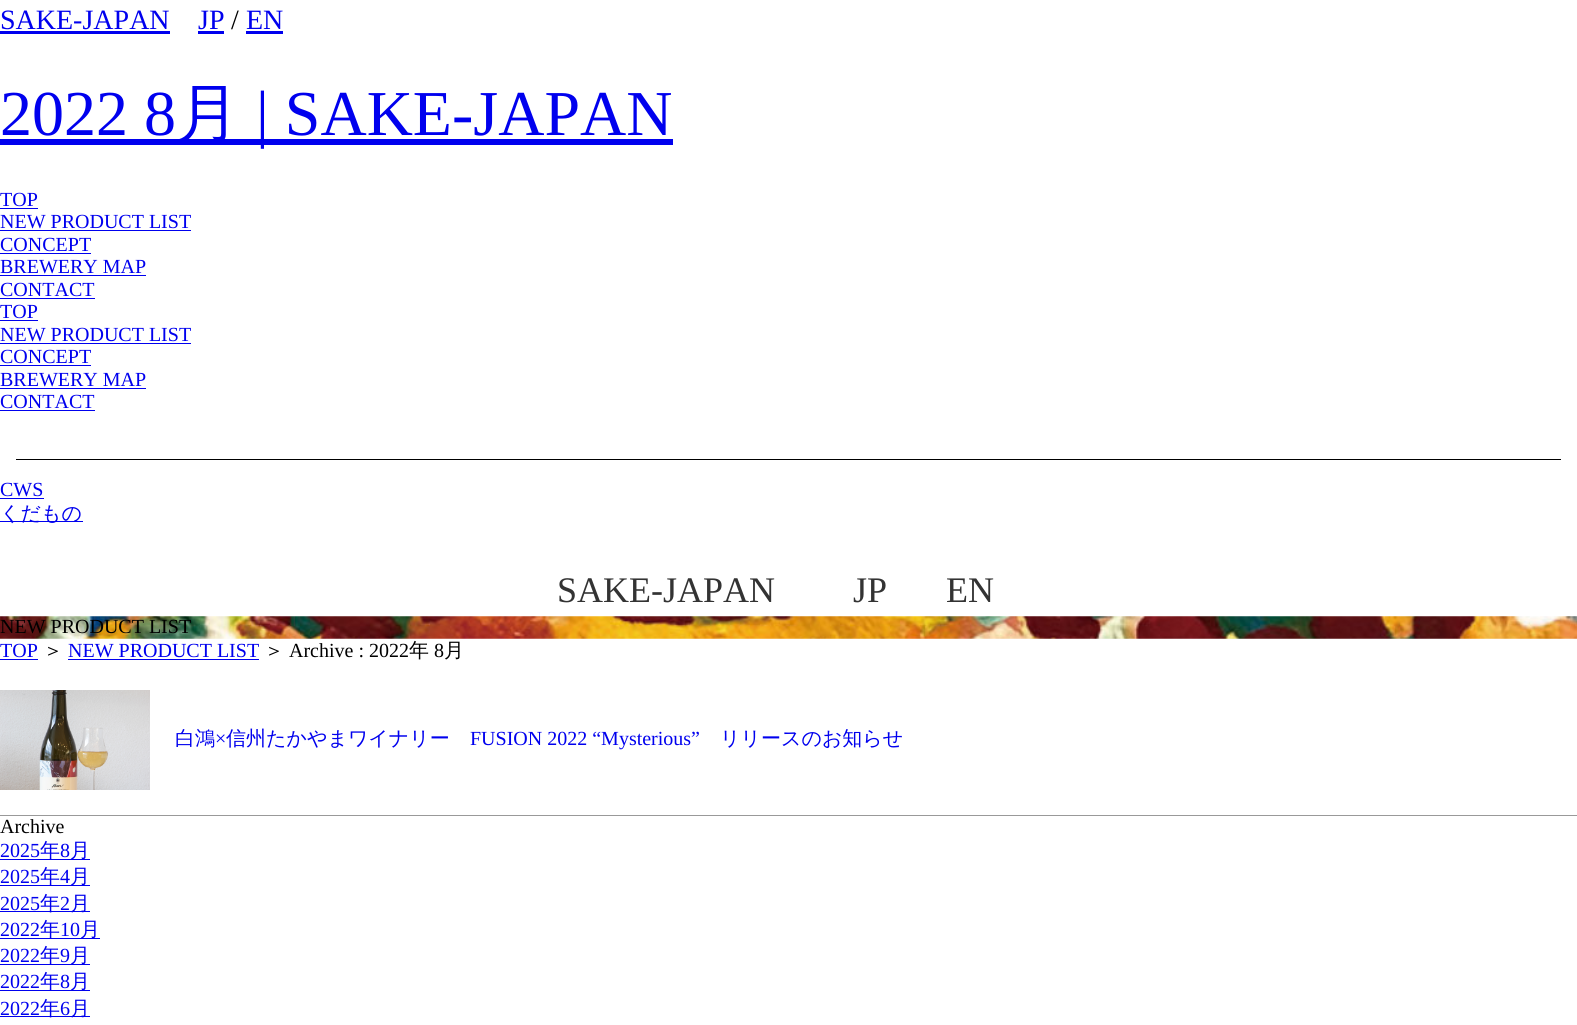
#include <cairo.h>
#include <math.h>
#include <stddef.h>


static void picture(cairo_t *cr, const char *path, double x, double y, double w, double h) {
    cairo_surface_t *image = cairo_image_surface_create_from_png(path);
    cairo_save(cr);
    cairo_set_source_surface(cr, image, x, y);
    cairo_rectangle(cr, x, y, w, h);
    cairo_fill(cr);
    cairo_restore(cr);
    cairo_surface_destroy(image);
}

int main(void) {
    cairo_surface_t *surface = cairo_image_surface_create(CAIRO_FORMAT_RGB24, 1577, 1025);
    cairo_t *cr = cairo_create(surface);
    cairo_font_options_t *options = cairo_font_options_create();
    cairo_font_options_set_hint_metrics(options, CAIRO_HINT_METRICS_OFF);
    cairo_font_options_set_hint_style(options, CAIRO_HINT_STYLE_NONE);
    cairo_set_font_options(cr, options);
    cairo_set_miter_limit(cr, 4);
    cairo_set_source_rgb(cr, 1, 1, 1);
    cairo_paint(cr);
    cairo_select_font_face(cr, "Liberation Serif", CAIRO_FONT_SLANT_NORMAL, CAIRO_FONT_WEIGHT_NORMAL);
    cairo_set_font_size(cr, 28);
    cairo_set_source_rgb(cr, 0, 0, 0.933);
    cairo_move_to(cr, 0, 29);
    cairo_show_text(cr, "SAKE-JAPAN");
    cairo_rectangle(cr, 0, 31, 170, 3);
    cairo_fill(cr);
    cairo_move_to(cr, 198, 29);
    cairo_show_text(cr, "JP");
    cairo_rectangle(cr, 198, 31, 26, 3);
    cairo_fill(cr);
    cairo_set_source_rgb(cr, 0, 0, 0);
    cairo_move_to(cr, 231, 29);
    cairo_show_text(cr, "/");
    cairo_set_source_rgb(cr, 0, 0, 0.933);
    cairo_move_to(cr, 246, 29);
    cairo_show_text(cr, "EN");
    cairo_rectangle(cr, 246, 31, 37, 3);
    cairo_fill(cr);
    cairo_set_font_size(cr, 64);
    cairo_move_to(cr, 0, 135);
    cairo_show_text(cr, "2022 8");
    cairo_rectangle(cr, 0, 139, 673, 6);
    cairo_fill(cr);
    cairo_select_font_face(cr, "WenQuanYi Zen Hei Medium", CAIRO_FONT_SLANT_NORMAL, CAIRO_FONT_WEIGHT_NORMAL);
    cairo_move_to(cr, 176, 135);
    cairo_show_text(cr, "月");
    cairo_select_font_face(cr, "Liberation Serif", CAIRO_FONT_SLANT_NORMAL, CAIRO_FONT_WEIGHT_NORMAL);
    cairo_move_to(cr, 256, 135);
    cairo_show_text(cr, "| SAKE-JAPAN");
    cairo_set_font_size(cr, 20);
    cairo_move_to(cr, 0, 206);
    cairo_show_text(cr, "TOP");
    cairo_rectangle(cr, 0, 208, 38, 1);
    cairo_fill(cr);
    cairo_move_to(cr, 0, 228);
    cairo_show_text(cr, "NEW PRODUCT LIST");
    cairo_rectangle(cr, 0, 230, 191, 1);
    cairo_fill(cr);
    cairo_move_to(cr, 0, 251);
    cairo_show_text(cr, "CONCEPT");
    cairo_rectangle(cr, 0, 253, 91, 1);
    cairo_fill(cr);
    cairo_move_to(cr, 0, 273);
    cairo_show_text(cr, "BREWERY MAP");
    cairo_rectangle(cr, 0, 275, 146, 1);
    cairo_fill(cr);
    cairo_move_to(cr, 0, 296);
    cairo_show_text(cr, "CONTACT");
    cairo_rectangle(cr, 0, 298, 95, 1);
    cairo_fill(cr);
    cairo_move_to(cr, 0, 318);
    cairo_show_text(cr, "TOP");
    cairo_rectangle(cr, 0, 320, 38, 1);
    cairo_fill(cr);
    cairo_move_to(cr, 0, 341);
    cairo_show_text(cr, "NEW PRODUCT LIST");
    cairo_rectangle(cr, 0, 343, 191, 1);
    cairo_fill(cr);
    cairo_move_to(cr, 0, 363);
    cairo_show_text(cr, "CONCEPT");
    cairo_rectangle(cr, 0, 365, 91, 1);
    cairo_fill(cr);
    cairo_move_to(cr, 0, 386);
    cairo_show_text(cr, "BREWERY MAP");
    cairo_rectangle(cr, 0, 388, 146, 1);
    cairo_fill(cr);
    cairo_move_to(cr, 0, 408);
    cairo_show_text(cr, "CONTACT");
    cairo_rectangle(cr, 0, 410, 95, 1);
    cairo_fill(cr);
    cairo_set_source_rgb(cr, 0, 0, 0);
    cairo_rectangle(cr, 16, 459, 1545, 1);
    cairo_fill(cr);
    cairo_set_source_rgb(cr, 0, 0, 0.933);
    cairo_move_to(cr, 0, 496);
    cairo_show_text(cr, "CWS");
    cairo_rectangle(cr, 0, 498, 44, 1);
    cairo_fill(cr);
    cairo_rectangle(cr, 0, 521, 83, 1);
    cairo_fill(cr);
    cairo_select_font_face(cr, "WenQuanYi Zen Hei Medium", CAIRO_FONT_SLANT_NORMAL, CAIRO_FONT_WEIGHT_NORMAL);
    cairo_move_to(cr, 0, 520);
    cairo_show_text(cr, "くだもの");
    cairo_select_font_face(cr, "Liberation Serif", CAIRO_FONT_SLANT_NORMAL, CAIRO_FONT_WEIGHT_NORMAL);
    cairo_set_font_size(cr, 36);
    cairo_set_source_rgb(cr, 0.2, 0.2, 0.2);
    cairo_move_to(cr, 557, 602);
    cairo_show_text(cr, "SAKE-JAPAN");
    cairo_move_to(cr, 853, 602);
    cairo_show_text(cr, "JP");
    cairo_move_to(cr, 946, 602);
    cairo_show_text(cr, "EN");
    picture(cr, "img1.png", 0, 616, 1577, 23);
    cairo_set_font_size(cr, 20);
    cairo_set_source_rgb(cr, 0, 0, 0);
    cairo_move_to(cr, 0, 633);
    cairo_show_text(cr, "NEW PRODUCT LIST");
    cairo_set_source_rgb(cr, 0, 0, 0.933);
    cairo_move_to(cr, 0, 657);
    cairo_show_text(cr, "TOP");
    cairo_rectangle(cr, 0, 659, 38, 1);
    cairo_fill(cr);
    cairo_select_font_face(cr, "WenQuanYi Zen Hei Medium", CAIRO_FONT_SLANT_NORMAL, CAIRO_FONT_WEIGHT_NORMAL);
    cairo_set_source_rgb(cr, 0, 0, 0);
    cairo_move_to(cr, 43, 657);
    cairo_show_text(cr, "＞");
    cairo_select_font_face(cr, "Liberation Serif", CAIRO_FONT_SLANT_NORMAL, CAIRO_FONT_WEIGHT_NORMAL);
    cairo_set_source_rgb(cr, 0, 0, 0.933);
    cairo_move_to(cr, 68, 657);
    cairo_show_text(cr, "NEW PRODUCT LIST");
    cairo_rectangle(cr, 68, 659, 191, 1);
    cairo_fill(cr);
    cairo_select_font_face(cr, "WenQuanYi Zen Hei Medium", CAIRO_FONT_SLANT_NORMAL, CAIRO_FONT_WEIGHT_NORMAL);
    cairo_set_source_rgb(cr, 0, 0, 0);
    cairo_move_to(cr, 264, 657);
    cairo_show_text(cr, "＞");
    cairo_select_font_face(cr, "Liberation Serif", CAIRO_FONT_SLANT_NORMAL, CAIRO_FONT_WEIGHT_NORMAL);
    cairo_move_to(cr, 289, 657);
    cairo_show_text(cr, "Archive : 2022");
    cairo_select_font_face(cr, "WenQuanYi Zen Hei Medium", CAIRO_FONT_SLANT_NORMAL, CAIRO_FONT_WEIGHT_NORMAL);
    cairo_move_to(cr, 409, 657);
    cairo_show_text(cr, "年");
    cairo_select_font_face(cr, "Liberation Serif", CAIRO_FONT_SLANT_NORMAL, CAIRO_FONT_WEIGHT_NORMAL);
    cairo_move_to(cr, 434, 657);
    cairo_show_text(cr, "8");
    cairo_select_font_face(cr, "WenQuanYi Zen Hei Medium", CAIRO_FONT_SLANT_NORMAL, CAIRO_FONT_WEIGHT_NORMAL);
    cairo_move_to(cr, 444, 657);
    cairo_show_text(cr, "月");
    cairo_set_source_rgb(cr, 0.6, 0.6, 0.6);
    cairo_rectangle(cr, 0, 815, 1577, 1);
    cairo_fill(cr);
    picture(cr, "img2.png", 0, 690, 150, 100);
    cairo_set_source_rgb(cr, 0, 0, 0.933);
    cairo_move_to(cr, 175, 745);
    cairo_show_text(cr, "白鴻");
    cairo_select_font_face(cr, "Liberation Serif", CAIRO_FONT_SLANT_NORMAL, CAIRO_FONT_WEIGHT_NORMAL);
    cairo_move_to(cr, 215, 745);
    cairo_show_text(cr, "×");
    cairo_select_font_face(cr, "WenQuanYi Zen Hei Medium", CAIRO_FONT_SLANT_NORMAL, CAIRO_FONT_WEIGHT_NORMAL);
    cairo_move_to(cr, 226, 745);
    cairo_show_text(cr, "信州たかやまワイナリー");
    cairo_select_font_face(cr, "Liberation Serif", CAIRO_FONT_SLANT_NORMAL, CAIRO_FONT_WEIGHT_NORMAL);
    cairo_move_to(cr, 470, 745);
    cairo_show_text(cr, "FUSION 2022 “Mysterious”");
    cairo_select_font_face(cr, "WenQuanYi Zen Hei Medium", CAIRO_FONT_SLANT_NORMAL, CAIRO_FONT_WEIGHT_NORMAL);
    cairo_move_to(cr, 720, 745);
    cairo_show_text(cr, "リリースのお知らせ");
    cairo_select_font_face(cr, "Liberation Serif", CAIRO_FONT_SLANT_NORMAL, CAIRO_FONT_WEIGHT_NORMAL);
    cairo_set_source_rgb(cr, 0, 0, 0);
    cairo_move_to(cr, 0, 833);
    cairo_show_text(cr, "Archive");
    cairo_set_source_rgb(cr, 0, 0, 0.933);
    cairo_move_to(cr, 0, 857);
    cairo_show_text(cr, "2025");
    cairo_rectangle(cr, 0, 859, 90, 1);
    cairo_fill(cr);
    cairo_select_font_face(cr, "WenQuanYi Zen Hei Medium", CAIRO_FONT_SLANT_NORMAL, CAIRO_FONT_WEIGHT_NORMAL);
    cairo_move_to(cr, 40, 857);
    cairo_show_text(cr, "年");
    cairo_select_font_face(cr, "Liberation Serif", CAIRO_FONT_SLANT_NORMAL, CAIRO_FONT_WEIGHT_NORMAL);
    cairo_move_to(cr, 60, 857);
    cairo_show_text(cr, "8");
    cairo_select_font_face(cr, "WenQuanYi Zen Hei Medium", CAIRO_FONT_SLANT_NORMAL, CAIRO_FONT_WEIGHT_NORMAL);
    cairo_move_to(cr, 70, 857);
    cairo_show_text(cr, "月");
    cairo_select_font_face(cr, "Liberation Serif", CAIRO_FONT_SLANT_NORMAL, CAIRO_FONT_WEIGHT_NORMAL);
    cairo_move_to(cr, 0, 883);
    cairo_show_text(cr, "2025");
    cairo_rectangle(cr, 0, 885, 90, 1);
    cairo_fill(cr);
    cairo_select_font_face(cr, "WenQuanYi Zen Hei Medium", CAIRO_FONT_SLANT_NORMAL, CAIRO_FONT_WEIGHT_NORMAL);
    cairo_move_to(cr, 40, 883);
    cairo_show_text(cr, "年");
    cairo_select_font_face(cr, "Liberation Serif", CAIRO_FONT_SLANT_NORMAL, CAIRO_FONT_WEIGHT_NORMAL);
    cairo_move_to(cr, 60, 883);
    cairo_show_text(cr, "4");
    cairo_select_font_face(cr, "WenQuanYi Zen Hei Medium", CAIRO_FONT_SLANT_NORMAL, CAIRO_FONT_WEIGHT_NORMAL);
    cairo_move_to(cr, 70, 883);
    cairo_show_text(cr, "月");
    cairo_select_font_face(cr, "Liberation Serif", CAIRO_FONT_SLANT_NORMAL, CAIRO_FONT_WEIGHT_NORMAL);
    cairo_move_to(cr, 0, 910);
    cairo_show_text(cr, "2025");
    cairo_rectangle(cr, 0, 911, 90, 1);
    cairo_fill(cr);
    cairo_select_font_face(cr, "WenQuanYi Zen Hei Medium", CAIRO_FONT_SLANT_NORMAL, CAIRO_FONT_WEIGHT_NORMAL);
    cairo_move_to(cr, 40, 910);
    cairo_show_text(cr, "年");
    cairo_select_font_face(cr, "Liberation Serif", CAIRO_FONT_SLANT_NORMAL, CAIRO_FONT_WEIGHT_NORMAL);
    cairo_move_to(cr, 60, 910);
    cairo_show_text(cr, "2");
    cairo_select_font_face(cr, "WenQuanYi Zen Hei Medium", CAIRO_FONT_SLANT_NORMAL, CAIRO_FONT_WEIGHT_NORMAL);
    cairo_move_to(cr, 70, 910);
    cairo_show_text(cr, "月");
    cairo_select_font_face(cr, "Liberation Serif", CAIRO_FONT_SLANT_NORMAL, CAIRO_FONT_WEIGHT_NORMAL);
    cairo_move_to(cr, 0, 936);
    cairo_show_text(cr, "2022");
    cairo_rectangle(cr, 0, 938, 100, 1);
    cairo_fill(cr);
    cairo_select_font_face(cr, "WenQuanYi Zen Hei Medium", CAIRO_FONT_SLANT_NORMAL, CAIRO_FONT_WEIGHT_NORMAL);
    cairo_move_to(cr, 40, 936);
    cairo_show_text(cr, "年");
    cairo_select_font_face(cr, "Liberation Serif", CAIRO_FONT_SLANT_NORMAL, CAIRO_FONT_WEIGHT_NORMAL);
    cairo_move_to(cr, 60, 936);
    cairo_show_text(cr, "10");
    cairo_select_font_face(cr, "WenQuanYi Zen Hei Medium", CAIRO_FONT_SLANT_NORMAL, CAIRO_FONT_WEIGHT_NORMAL);
    cairo_move_to(cr, 80, 936);
    cairo_show_text(cr, "月");
    cairo_select_font_face(cr, "Liberation Serif", CAIRO_FONT_SLANT_NORMAL, CAIRO_FONT_WEIGHT_NORMAL);
    cairo_move_to(cr, 0, 962);
    cairo_show_text(cr, "2022");
    cairo_rectangle(cr, 0, 964, 90, 1);
    cairo_fill(cr);
    cairo_select_font_face(cr, "WenQuanYi Zen Hei Medium", CAIRO_FONT_SLANT_NORMAL, CAIRO_FONT_WEIGHT_NORMAL);
    cairo_move_to(cr, 40, 962);
    cairo_show_text(cr, "年");
    cairo_select_font_face(cr, "Liberation Serif", CAIRO_FONT_SLANT_NORMAL, CAIRO_FONT_WEIGHT_NORMAL);
    cairo_move_to(cr, 60, 962);
    cairo_show_text(cr, "9");
    cairo_select_font_face(cr, "WenQuanYi Zen Hei Medium", CAIRO_FONT_SLANT_NORMAL, CAIRO_FONT_WEIGHT_NORMAL);
    cairo_move_to(cr, 70, 962);
    cairo_show_text(cr, "月");
    cairo_select_font_face(cr, "Liberation Serif", CAIRO_FONT_SLANT_NORMAL, CAIRO_FONT_WEIGHT_NORMAL);
    cairo_move_to(cr, 0, 988);
    cairo_show_text(cr, "2022");
    cairo_rectangle(cr, 0, 990, 90, 1);
    cairo_fill(cr);
    cairo_select_font_face(cr, "WenQuanYi Zen Hei Medium", CAIRO_FONT_SLANT_NORMAL, CAIRO_FONT_WEIGHT_NORMAL);
    cairo_move_to(cr, 40, 988);
    cairo_show_text(cr, "年");
    cairo_select_font_face(cr, "Liberation Serif", CAIRO_FONT_SLANT_NORMAL, CAIRO_FONT_WEIGHT_NORMAL);
    cairo_move_to(cr, 60, 988);
    cairo_show_text(cr, "8");
    cairo_select_font_face(cr, "WenQuanYi Zen Hei Medium", CAIRO_FONT_SLANT_NORMAL, CAIRO_FONT_WEIGHT_NORMAL);
    cairo_move_to(cr, 70, 988);
    cairo_show_text(cr, "月");
    cairo_select_font_face(cr, "Liberation Serif", CAIRO_FONT_SLANT_NORMAL, CAIRO_FONT_WEIGHT_NORMAL);
    cairo_move_to(cr, 0, 1015);
    cairo_show_text(cr, "2022");
    cairo_rectangle(cr, 0, 1016, 90, 1);
    cairo_fill(cr);
    cairo_select_font_face(cr, "WenQuanYi Zen Hei Medium", CAIRO_FONT_SLANT_NORMAL, CAIRO_FONT_WEIGHT_NORMAL);
    cairo_move_to(cr, 40, 1015);
    cairo_show_text(cr, "年");
    cairo_select_font_face(cr, "Liberation Serif", CAIRO_FONT_SLANT_NORMAL, CAIRO_FONT_WEIGHT_NORMAL);
    cairo_move_to(cr, 60, 1015);
    cairo_show_text(cr, "6");
    cairo_select_font_face(cr, "WenQuanYi Zen Hei Medium", CAIRO_FONT_SLANT_NORMAL, CAIRO_FONT_WEIGHT_NORMAL);
    cairo_move_to(cr, 70, 1015);
    cairo_show_text(cr, "月");
    cairo_surface_write_to_png(surface, "page.png");
    cairo_font_options_destroy(options);
    cairo_destroy(cr);
    cairo_surface_destroy(surface);
    return 0;
}
